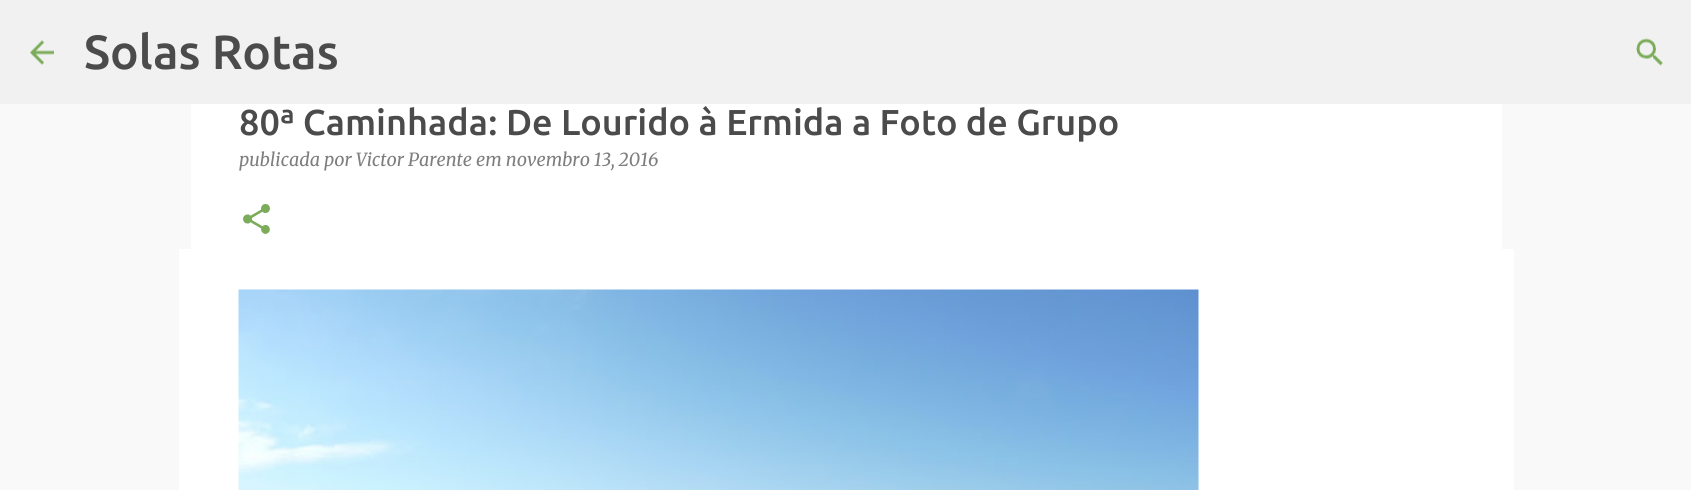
#include <cairo.h>
#include <math.h>
#include <stddef.h>


static void picture(cairo_t *cr, const char *path, double x, double y, double w, double h) {
    cairo_surface_t *image = cairo_image_surface_create_from_png(path);
    cairo_save(cr);
    cairo_set_source_surface(cr, image, x, y);
    cairo_rectangle(cr, x, y, w, h);
    cairo_fill(cr);
    cairo_restore(cr);
    cairo_surface_destroy(image);
}

int main(void) {
    cairo_surface_t *surface = cairo_image_surface_create(CAIRO_FORMAT_RGB24, 1691, 490);
    cairo_t *cr = cairo_create(surface);
    cairo_font_options_t *options = cairo_font_options_create();
    cairo_font_options_set_hint_metrics(options, CAIRO_HINT_METRICS_OFF);
    cairo_font_options_set_hint_style(options, CAIRO_HINT_STYLE_NONE);
    cairo_set_font_options(cr, options);
    cairo_set_miter_limit(cr, 4);
    cairo_set_source_rgb(cr, 0.976, 0.976, 0.976);
    cairo_paint(cr);
    cairo_set_source_rgb(cr, 0.945, 0.945, 0.945);
    cairo_rectangle(cr, 0, 0, 1691, 104);
    cairo_fill(cr);
    picture(cr, "img1.png", 30, 40, 24, 25);
    cairo_select_font_face(cr, "Ubuntu Medium", CAIRO_FONT_SLANT_NORMAL, CAIRO_FONT_WEIGHT_NORMAL);
    cairo_set_font_size(cr, 48);
    cairo_set_source_rgb(cr, 0.294, 0.294, 0.294);
    cairo_move_to(cr, 84, 69);
    cairo_show_text(cr, "Solas Rotas");
    picture(cr, "img2.png", 1636, 38, 27, 28);
    cairo_set_source_rgb(cr, 1, 1, 1);
    cairo_rectangle(cr, 191, 104, 1311, 145);
    cairo_fill(cr);
    cairo_set_font_size(cr, 36);
    cairo_set_source_rgb(cr, 0.294, 0.294, 0.294);
    cairo_move_to(cr, 239, 135);
    cairo_show_text(cr, "80ª Caminhada: De Lourido à Ermida a Foto de Grupo");
    cairo_select_font_face(cr, "Merriweather", CAIRO_FONT_SLANT_ITALIC, CAIRO_FONT_WEIGHT_NORMAL);
    cairo_set_font_size(cr, 18);
    cairo_set_source_rgb(cr, 0.494, 0.494, 0.494);
    cairo_move_to(cr, 239, 166);
    cairo_show_text(cr, "publicada por Victor Parente em novembro 13, 2016");
    picture(cr, "img3.png", 243, 204, 27, 30);
    cairo_set_source_rgb(cr, 1, 1, 1);
    cairo_rectangle(cr, 179, 249, 1335, 241);
    cairo_fill(cr);
    picture(cr, "img4.png", 238, 289, 961, 201);
    cairo_surface_write_to_png(surface, "page.png");
    cairo_font_options_destroy(options);
    cairo_destroy(cr);
    cairo_surface_destroy(surface);
    return 0;
}
